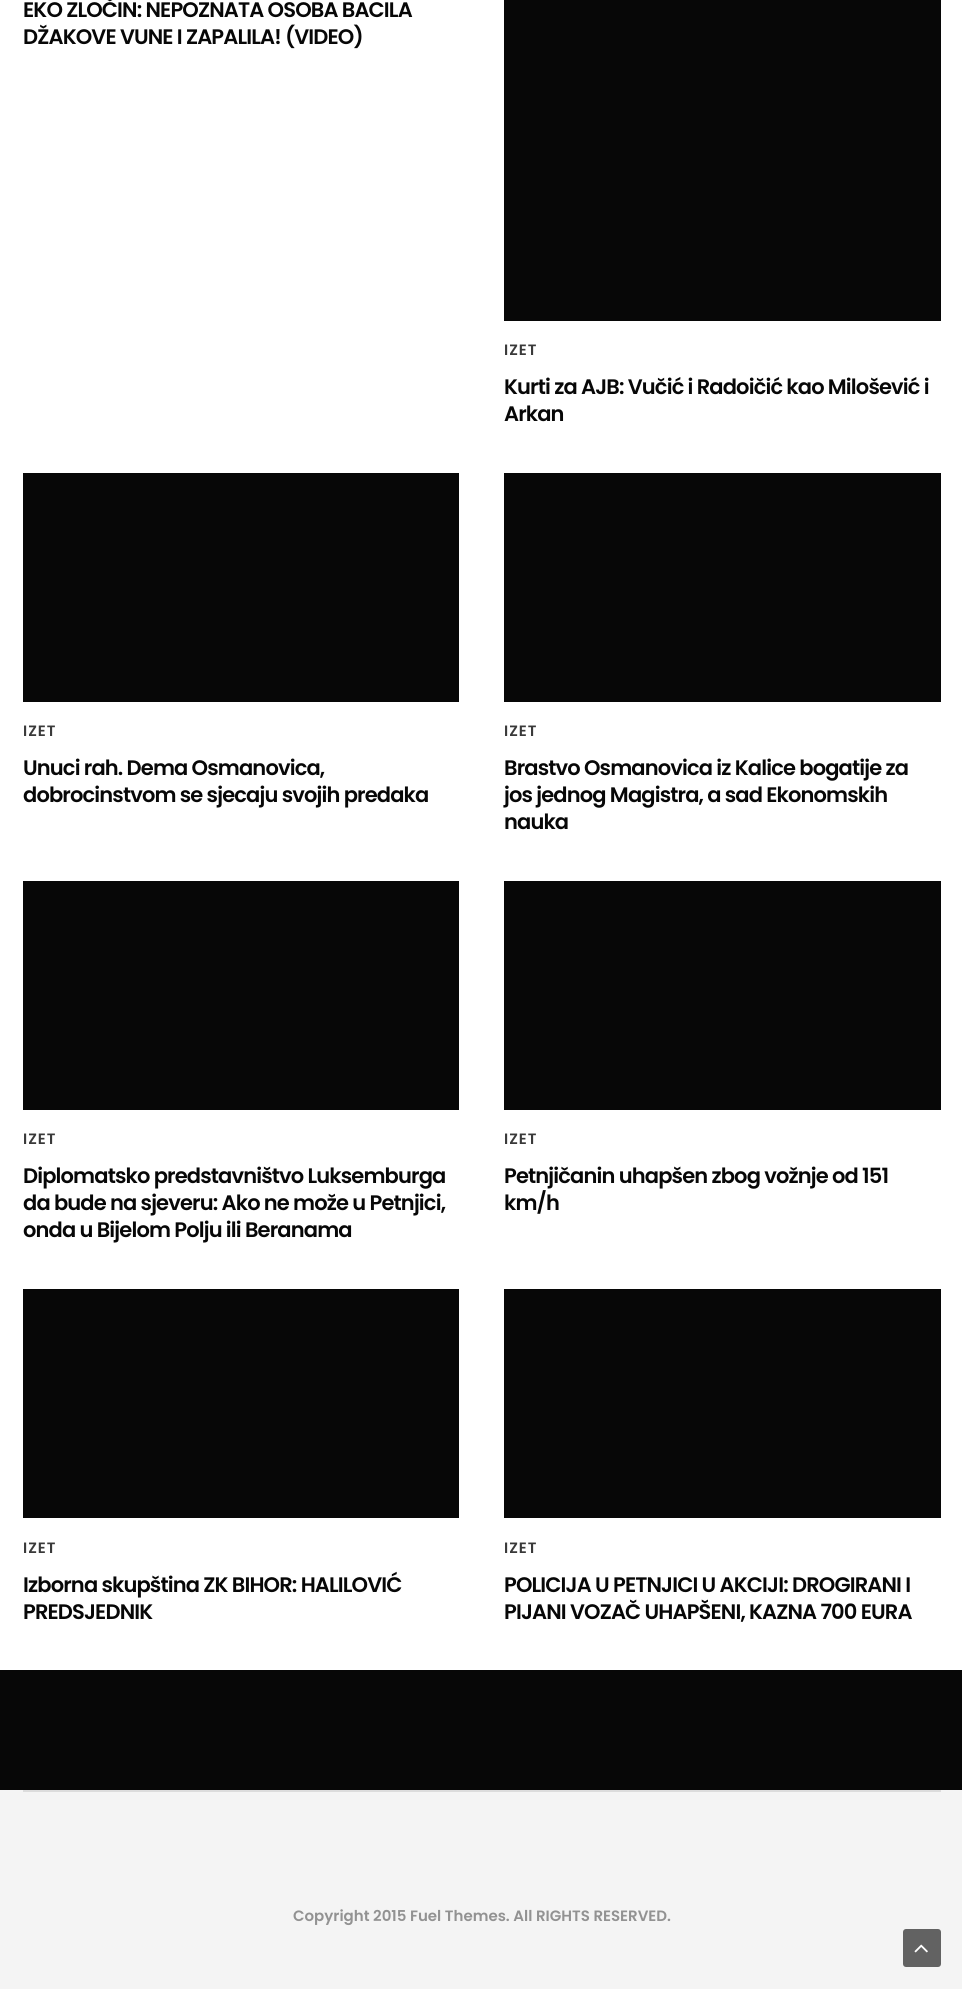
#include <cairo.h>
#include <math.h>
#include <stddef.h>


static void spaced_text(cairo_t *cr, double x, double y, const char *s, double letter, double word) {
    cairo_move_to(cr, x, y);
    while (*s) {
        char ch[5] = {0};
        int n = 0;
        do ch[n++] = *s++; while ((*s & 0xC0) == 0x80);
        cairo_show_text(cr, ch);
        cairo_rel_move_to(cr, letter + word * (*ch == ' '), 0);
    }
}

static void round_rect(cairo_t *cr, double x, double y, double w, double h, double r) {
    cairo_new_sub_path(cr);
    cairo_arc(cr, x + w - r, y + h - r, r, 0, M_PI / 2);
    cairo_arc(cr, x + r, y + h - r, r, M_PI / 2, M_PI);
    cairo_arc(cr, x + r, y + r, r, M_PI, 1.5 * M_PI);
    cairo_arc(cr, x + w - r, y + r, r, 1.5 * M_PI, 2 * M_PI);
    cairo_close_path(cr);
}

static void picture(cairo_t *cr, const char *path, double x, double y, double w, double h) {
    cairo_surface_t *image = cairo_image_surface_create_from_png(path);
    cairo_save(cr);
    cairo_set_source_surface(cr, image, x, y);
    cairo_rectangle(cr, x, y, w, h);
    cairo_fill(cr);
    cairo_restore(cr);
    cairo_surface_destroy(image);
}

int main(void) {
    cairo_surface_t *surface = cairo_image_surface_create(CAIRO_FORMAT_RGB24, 962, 1989);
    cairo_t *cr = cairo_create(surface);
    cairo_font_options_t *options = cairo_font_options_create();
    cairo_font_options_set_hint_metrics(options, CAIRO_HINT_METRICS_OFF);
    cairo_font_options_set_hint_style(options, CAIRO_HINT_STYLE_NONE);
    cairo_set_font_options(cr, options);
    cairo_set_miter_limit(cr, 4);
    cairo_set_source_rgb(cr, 0.031, 0.031, 0.031);
    cairo_paint(cr);
    cairo_set_source_rgb(cr, 1, 1, 1);
    cairo_rectangle(cr, 0, 0, 962, 1670);
    cairo_fill(cr);
    cairo_select_font_face(cr, "Poppins SemiBold", CAIRO_FONT_SLANT_NORMAL, CAIRO_FONT_WEIGHT_NORMAL);
    cairo_set_font_size(cr, 21);
    cairo_set_source_rgb(cr, 0.031, 0.031, 0.031);
    spaced_text(cr, 23, 17, "EKO ZLOČIN: NEPOZNATA OSOBA BACILA", -0.85, 0);
    spaced_text(cr, 23, 44, "DŽAKOVE VUNE I ZAPALILA! (VIDEO)", -0.85, 0);
    cairo_rectangle(cr, 504, 0, 437, 321);
    cairo_fill(cr);
    cairo_set_font_size(cr, 15);
    cairo_set_source_rgb(cr, 0.224, 0.224, 0.224);
    spaced_text(cr, 504, 355, "IZET", 1, 0);
    cairo_set_font_size(cr, 21);
    cairo_set_source_rgb(cr, 0.031, 0.031, 0.031);
    spaced_text(cr, 504, 394, "Kurti za AJB: Vučić i Radoičić kao Milošević i", -0.85, 0);
    spaced_text(cr, 504, 421, "Arkan", -0.85, 0);
    cairo_rectangle(cr, 23, 473, 436, 229);
    cairo_fill(cr);
    cairo_set_font_size(cr, 15);
    cairo_set_source_rgb(cr, 0.224, 0.224, 0.224);
    spaced_text(cr, 23, 736, "IZET", 1, 0);
    cairo_set_font_size(cr, 21);
    cairo_set_source_rgb(cr, 0.031, 0.031, 0.031);
    spaced_text(cr, 23, 775, "Unuci rah. Dema Osmanovica,", -0.85, 0);
    spaced_text(cr, 23, 802, "dobrocinstvom se sjecaju svojih predaka", -0.85, 0);
    cairo_rectangle(cr, 504, 473, 437, 229);
    cairo_fill(cr);
    cairo_set_font_size(cr, 15);
    cairo_set_source_rgb(cr, 0.224, 0.224, 0.224);
    spaced_text(cr, 504, 736, "IZET", 1, 0);
    cairo_set_font_size(cr, 21);
    cairo_set_source_rgb(cr, 0.031, 0.031, 0.031);
    spaced_text(cr, 504, 775, "Brastvo Osmanovica iz Kalice bogatije za", -0.85, 0);
    spaced_text(cr, 504, 802, "jos jednog Magistra, a sad Ekonomskih", -0.85, 0);
    spaced_text(cr, 504, 829, "nauka", -0.85, 0);
    cairo_rectangle(cr, 23, 881, 436, 229);
    cairo_fill(cr);
    cairo_set_font_size(cr, 15);
    cairo_set_source_rgb(cr, 0.224, 0.224, 0.224);
    spaced_text(cr, 23, 1144, "IZET", 1, 0);
    cairo_set_font_size(cr, 21);
    cairo_set_source_rgb(cr, 0.031, 0.031, 0.031);
    spaced_text(cr, 23, 1183, "Diplomatsko predstavništvo Luksemburga", -0.85, 0);
    spaced_text(cr, 23, 1210, "da bude na sjeveru: Ako ne može u Petnjici,", -0.85, 0);
    spaced_text(cr, 23, 1237, "onda u Bijelom Polju ili Beranama", -0.85, 0);
    cairo_rectangle(cr, 504, 881, 437, 229);
    cairo_fill(cr);
    cairo_set_font_size(cr, 15);
    cairo_set_source_rgb(cr, 0.224, 0.224, 0.224);
    spaced_text(cr, 504, 1144, "IZET", 1, 0);
    cairo_set_font_size(cr, 21);
    cairo_set_source_rgb(cr, 0.031, 0.031, 0.031);
    spaced_text(cr, 504, 1183, "Petnjičanin uhapšen zbog vožnje od 151", -0.85, 0);
    spaced_text(cr, 504, 1210, "km/h", -0.85, 0);
    cairo_rectangle(cr, 23, 1289, 436, 229);
    cairo_fill(cr);
    cairo_set_font_size(cr, 15);
    cairo_set_source_rgb(cr, 0.224, 0.224, 0.224);
    spaced_text(cr, 23, 1553, "IZET", 1, 0);
    cairo_set_font_size(cr, 21);
    cairo_set_source_rgb(cr, 0.031, 0.031, 0.031);
    spaced_text(cr, 23, 1592, "Izborna skupština ZK BIHOR: HALILOVIĆ", -0.85, 0);
    spaced_text(cr, 23, 1619, "PREDSJEDNIK", -0.85, 0);
    cairo_rectangle(cr, 504, 1289, 437, 229);
    cairo_fill(cr);
    cairo_set_font_size(cr, 15);
    cairo_set_source_rgb(cr, 0.224, 0.224, 0.224);
    spaced_text(cr, 504, 1553, "IZET", 1, 0);
    cairo_set_font_size(cr, 21);
    cairo_set_source_rgb(cr, 0.031, 0.031, 0.031);
    spaced_text(cr, 504, 1592, "POLICIJA U PETNJICI U AKCIJI: DROGIRANI I", -0.85, 0);
    spaced_text(cr, 504, 1619, "PIJANI VOZAČ UHAPŠENI, KAZNA 700 EURA", -0.85, 0);
    cairo_set_source_rgb(cr, 0.957, 0.957, 0.957);
    cairo_rectangle(cr, 0, 1790, 962, 199);
    cairo_fill(cr);
    cairo_set_source_rgb(cr, 0.863, 0.863, 0.863);
    cairo_rectangle(cr, 23, 1790, 918, 2);
    cairo_fill(cr);
    cairo_set_font_size(cr, 15);
    cairo_set_source_rgb(cr, 0.573, 0.573, 0.573);
    cairo_move_to(cr, 293, 1921);
    cairo_show_text(cr, "Copyright 2015 Fuel Themes. All RIGHTS RESERVED.");
    cairo_set_source_rgb(cr, 0.384, 0.384, 0.384);
    round_rect(cr, 903, 1929, 38, 38, 3);
    cairo_fill(cr);
    picture(cr, "img1.png", 914, 1944, 14, 9);
    cairo_surface_write_to_png(surface, "page.png");
    cairo_font_options_destroy(options);
    cairo_destroy(cr);
    cairo_surface_destroy(surface);
    return 0;
}
